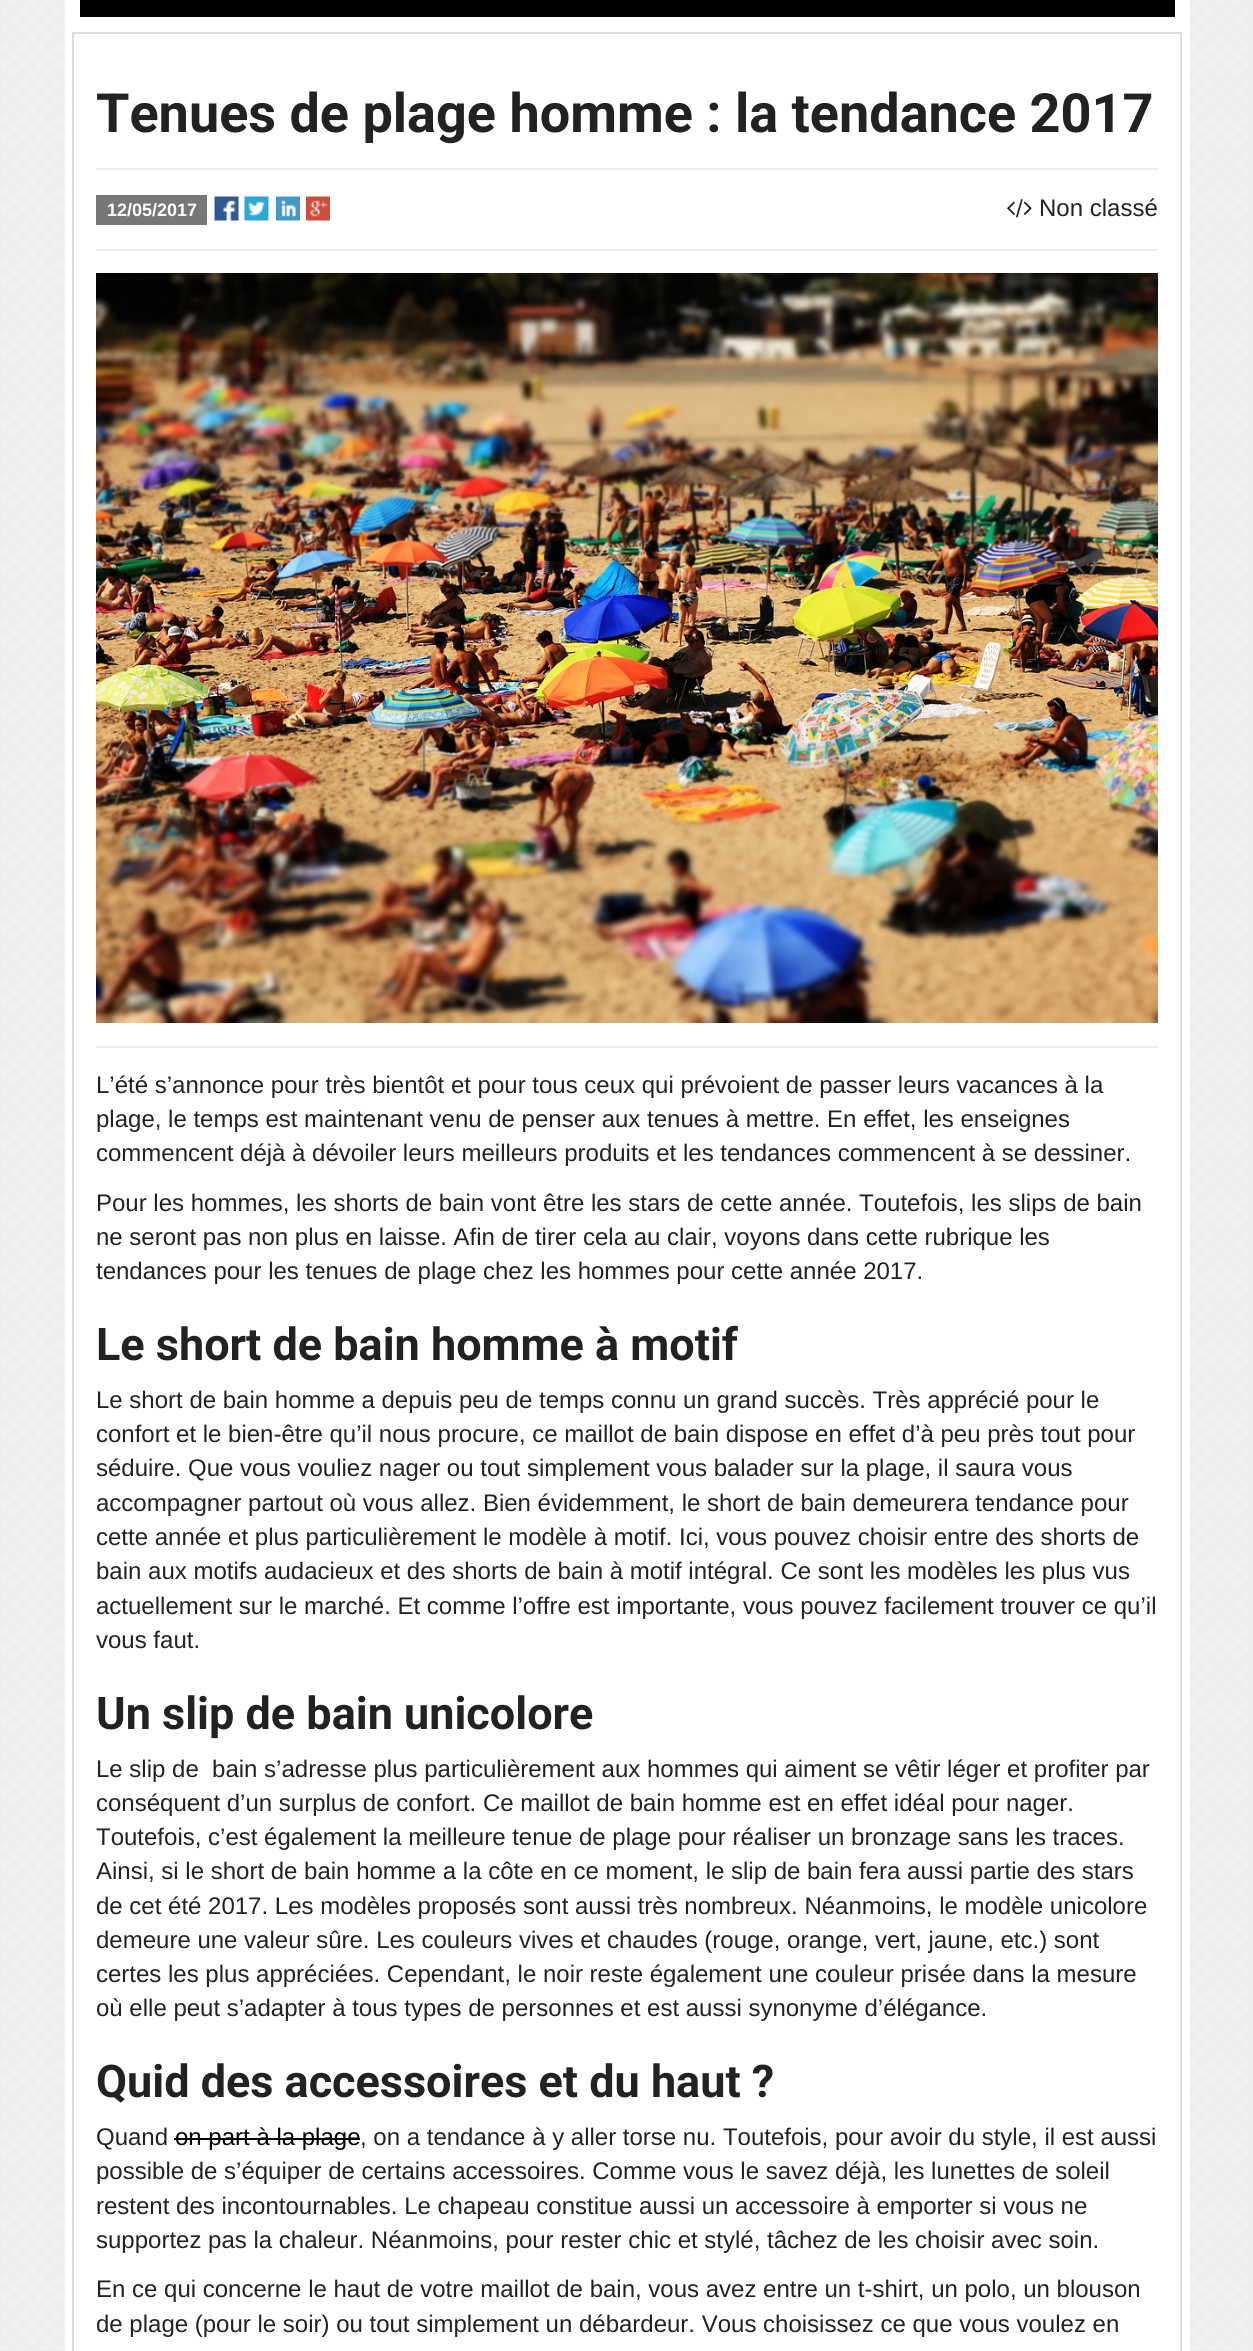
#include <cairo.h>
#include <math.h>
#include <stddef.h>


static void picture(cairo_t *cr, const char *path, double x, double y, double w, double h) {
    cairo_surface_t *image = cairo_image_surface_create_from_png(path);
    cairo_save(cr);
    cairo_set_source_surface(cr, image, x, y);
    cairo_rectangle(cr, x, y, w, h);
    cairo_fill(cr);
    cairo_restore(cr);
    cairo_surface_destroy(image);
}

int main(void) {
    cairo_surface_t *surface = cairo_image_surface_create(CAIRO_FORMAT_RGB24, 1253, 2351);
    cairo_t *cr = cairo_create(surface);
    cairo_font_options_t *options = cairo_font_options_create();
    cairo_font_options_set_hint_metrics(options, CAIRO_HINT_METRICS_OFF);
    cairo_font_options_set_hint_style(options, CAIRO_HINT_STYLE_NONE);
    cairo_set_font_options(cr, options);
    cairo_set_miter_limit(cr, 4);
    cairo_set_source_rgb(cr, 0.933, 0.933, 0.933);
    cairo_paint(cr);
    picture(cr, "img1.png", 2, 0, 1247, 2350);
    cairo_set_source_rgb(cr, 1, 1, 1);
    cairo_rectangle(cr, 65, 0, 1125, 2351);
    cairo_fill(cr);
    cairo_set_source_rgb(cr, 0, 0, 0);
    cairo_rectangle(cr, 80, 0, 1095, 17);
    cairo_fill(cr);
    cairo_rectangle(cr, 73, 33, 1108, 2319);
    cairo_set_source_rgb(cr, 0.867, 0.867, 0.867);
    cairo_stroke(cr);
    cairo_select_font_face(cr, "Roboto", CAIRO_FONT_SLANT_NORMAL, CAIRO_FONT_WEIGHT_BOLD);
    cairo_set_font_size(cr, 54);
    cairo_set_source_rgb(cr, 0.133, 0.133, 0.133);
    cairo_move_to(cr, 96, 132);
    cairo_show_text(cr, "Tenues de plage homme : la tendance 2017");
    cairo_set_source_rgb(cr, 0.933, 0.933, 0.933);
    cairo_rectangle(cr, 96, 168, 1062, 2);
    cairo_fill(cr);
    cairo_set_source_rgb(cr, 0.467, 0.467, 0.467);
    cairo_rectangle(cr, 96, 195, 111, 30);
    cairo_fill(cr);
    cairo_select_font_face(cr, "Liberation Sans", CAIRO_FONT_SLANT_NORMAL, CAIRO_FONT_WEIGHT_BOLD);
    cairo_set_font_size(cr, 18);
    cairo_set_source_rgb(cr, 1, 1, 1);
    cairo_move_to(cr, 107, 216);
    cairo_show_text(cr, "12/05/2017");
    picture(cr, "img2.png", 214, 196, 25, 25);
    picture(cr, "img3.png", 244, 196, 25, 25);
    picture(cr, "img4.png", 276, 196, 24, 25);
    picture(cr, "img5.png", 306, 196, 24, 25);
    picture(cr, "img6.png", 1007, 199, 25, 19);
    cairo_select_font_face(cr, "Liberation Sans", CAIRO_FONT_SLANT_NORMAL, CAIRO_FONT_WEIGHT_NORMAL);
    cairo_set_font_size(cr, 24);
    cairo_set_source_rgb(cr, 0.133, 0.133, 0.133);
    cairo_move_to(cr, 1039, 216);
    cairo_show_text(cr, "Non classé");
    cairo_set_source_rgb(cr, 0.933, 0.933, 0.933);
    cairo_rectangle(cr, 96, 249, 1062, 2);
    cairo_fill(cr);
    picture(cr, "img7.png", 96, 273, 1062, 750);
    cairo_rectangle(cr, 96, 1046, 1062, 2);
    cairo_fill(cr);
    cairo_set_source_rgb(cr, 0.133, 0.133, 0.133);
    cairo_move_to(cr, 96, 1093);
    cairo_show_text(cr, "L’été s’annonce pour très bientôt et pour tous ceux qui prévoient de passer leurs vacances à la");
    cairo_move_to(cr, 96, 1127);
    cairo_show_text(cr, "plage, le temps est maintenant venu de penser aux tenues à mettre. En effet, les enseignes");
    cairo_move_to(cr, 96, 1161);
    cairo_show_text(cr, "commencent déjà à dévoiler leurs meilleurs produits et les tendances commencent à se dessiner.");
    cairo_move_to(cr, 96, 1211);
    cairo_show_text(cr, "Pour les hommes, les shorts de bain vont être les stars de cette année. Toutefois, les slips de bain");
    cairo_move_to(cr, 96, 1245);
    cairo_show_text(cr, "ne seront pas non plus en laisse. Afin de tirer cela au clair, voyons dans cette rubrique les");
    cairo_move_to(cr, 96, 1279);
    cairo_show_text(cr, "tendances pour les tenues de plage chez les hommes pour cette année 2017.");
    cairo_select_font_face(cr, "Roboto", CAIRO_FONT_SLANT_NORMAL, CAIRO_FONT_WEIGHT_BOLD);
    cairo_set_font_size(cr, 45);
    cairo_move_to(cr, 96, 1360);
    cairo_show_text(cr, "Le short de bain homme à motif");
    cairo_select_font_face(cr, "Liberation Sans", CAIRO_FONT_SLANT_NORMAL, CAIRO_FONT_WEIGHT_NORMAL);
    cairo_set_font_size(cr, 24);
    cairo_move_to(cr, 96, 1408);
    cairo_show_text(cr, "Le short de bain homme a depuis peu de temps connu un grand succès. Très apprécié pour le");
    cairo_move_to(cr, 96, 1442);
    cairo_show_text(cr, "confort et le bien-être qu’il nous procure, ce maillot de bain dispose en effet d’à peu près tout pour");
    cairo_move_to(cr, 96, 1476);
    cairo_show_text(cr, "séduire. Que vous vouliez nager ou tout simplement vous balader sur la plage, il saura vous");
    cairo_move_to(cr, 96, 1511);
    cairo_show_text(cr, "accompagner partout où vous allez. Bien évidemment, le short de bain demeurera tendance pour");
    cairo_move_to(cr, 96, 1545);
    cairo_show_text(cr, "cette année et plus particulièrement le modèle à motif. Ici, vous pouvez choisir entre des shorts de");
    cairo_move_to(cr, 96, 1579);
    cairo_show_text(cr, "bain aux motifs audacieux et des shorts de bain à motif intégral. Ce sont les modèles les plus vus");
    cairo_move_to(cr, 96, 1614);
    cairo_show_text(cr, "actuellement sur le marché. Et comme l’offre est importante, vous pouvez facilement trouver ce qu’il");
    cairo_move_to(cr, 96, 1648);
    cairo_show_text(cr, "vous faut.");
    cairo_select_font_face(cr, "Roboto", CAIRO_FONT_SLANT_NORMAL, CAIRO_FONT_WEIGHT_BOLD);
    cairo_set_font_size(cr, 45);
    cairo_move_to(cr, 96, 1729);
    cairo_show_text(cr, "Un slip de bain unicolore");
    cairo_select_font_face(cr, "Liberation Sans", CAIRO_FONT_SLANT_NORMAL, CAIRO_FONT_WEIGHT_NORMAL);
    cairo_set_font_size(cr, 24);
    cairo_move_to(cr, 96, 1777);
    cairo_show_text(cr, "Le slip de  bain s’adresse plus particulièrement aux hommes qui aiment se vêtir léger et profiter par");
    cairo_move_to(cr, 96, 1811);
    cairo_show_text(cr, "conséquent d’un surplus de confort. Ce maillot de bain homme est en effet idéal pour nager.");
    cairo_move_to(cr, 96, 1845);
    cairo_show_text(cr, "Toutefois, c’est également la meilleure tenue de plage pour réaliser un bronzage sans les traces.");
    cairo_move_to(cr, 96, 1879);
    cairo_show_text(cr, "Ainsi, si le short de bain homme a la côte en ce moment, le slip de bain fera aussi partie des stars");
    cairo_move_to(cr, 96, 1914);
    cairo_show_text(cr, "de cet été 2017. Les modèles proposés sont aussi très nombreux. Néanmoins, le modèle unicolore");
    cairo_move_to(cr, 96, 1948);
    cairo_show_text(cr, "demeure une valeur sûre. Les couleurs vives et chaudes (rouge, orange, vert, jaune, etc.) sont");
    cairo_move_to(cr, 96, 1982);
    cairo_show_text(cr, "certes les plus appréciées. Cependant, le noir reste également une couleur prisée dans la mesure");
    cairo_move_to(cr, 96, 2016);
    cairo_show_text(cr, "où elle peut s’adapter à tous types de personnes et est aussi synonyme d’élégance.");
    cairo_select_font_face(cr, "Roboto", CAIRO_FONT_SLANT_NORMAL, CAIRO_FONT_WEIGHT_BOLD);
    cairo_set_font_size(cr, 45);
    cairo_move_to(cr, 96, 2097);
    cairo_show_text(cr, "Quid des accessoires et du haut ?");
    cairo_select_font_face(cr, "Liberation Sans", CAIRO_FONT_SLANT_NORMAL, CAIRO_FONT_WEIGHT_NORMAL);
    cairo_set_font_size(cr, 24);
    cairo_move_to(cr, 96, 2145);
    cairo_show_text(cr, "Quand");
    cairo_set_source_rgb(cr, 0, 0, 0);
    cairo_move_to(cr, 175, 2145);
    cairo_show_text(cr, "on part à la plage");
    cairo_rectangle(cr, 174, 2138, 186, 2);
    cairo_fill(cr);
    cairo_set_source_rgb(cr, 0.133, 0.133, 0.133);
    cairo_move_to(cr, 360, 2145);
    cairo_show_text(cr, ", on a tendance à y aller torse nu. Toutefois, pour avoir du style, il est aussi");
    cairo_move_to(cr, 96, 2179);
    cairo_show_text(cr, "possible de s’équiper de certains accessoires. Comme vous le savez déjà, les lunettes de soleil");
    cairo_move_to(cr, 96, 2214);
    cairo_show_text(cr, "restent des incontournables. Le chapeau constitue aussi un accessoire à emporter si vous ne");
    cairo_move_to(cr, 96, 2248);
    cairo_show_text(cr, "supportez pas la chaleur. Néanmoins, pour rester chic et stylé, tâchez de les choisir avec soin.");
    cairo_move_to(cr, 96, 2297);
    cairo_show_text(cr, "En ce qui concerne le haut de votre maillot de bain, vous avez entre un t-shirt, un polo, un blouson");
    cairo_move_to(cr, 96, 2332);
    cairo_show_text(cr, "de plage (pour le soir) ou tout simplement un débardeur. Vous choisissez ce que vous voulez en");
    cairo_surface_write_to_png(surface, "page.png");
    cairo_font_options_destroy(options);
    cairo_destroy(cr);
    cairo_surface_destroy(surface);
    return 0;
}
